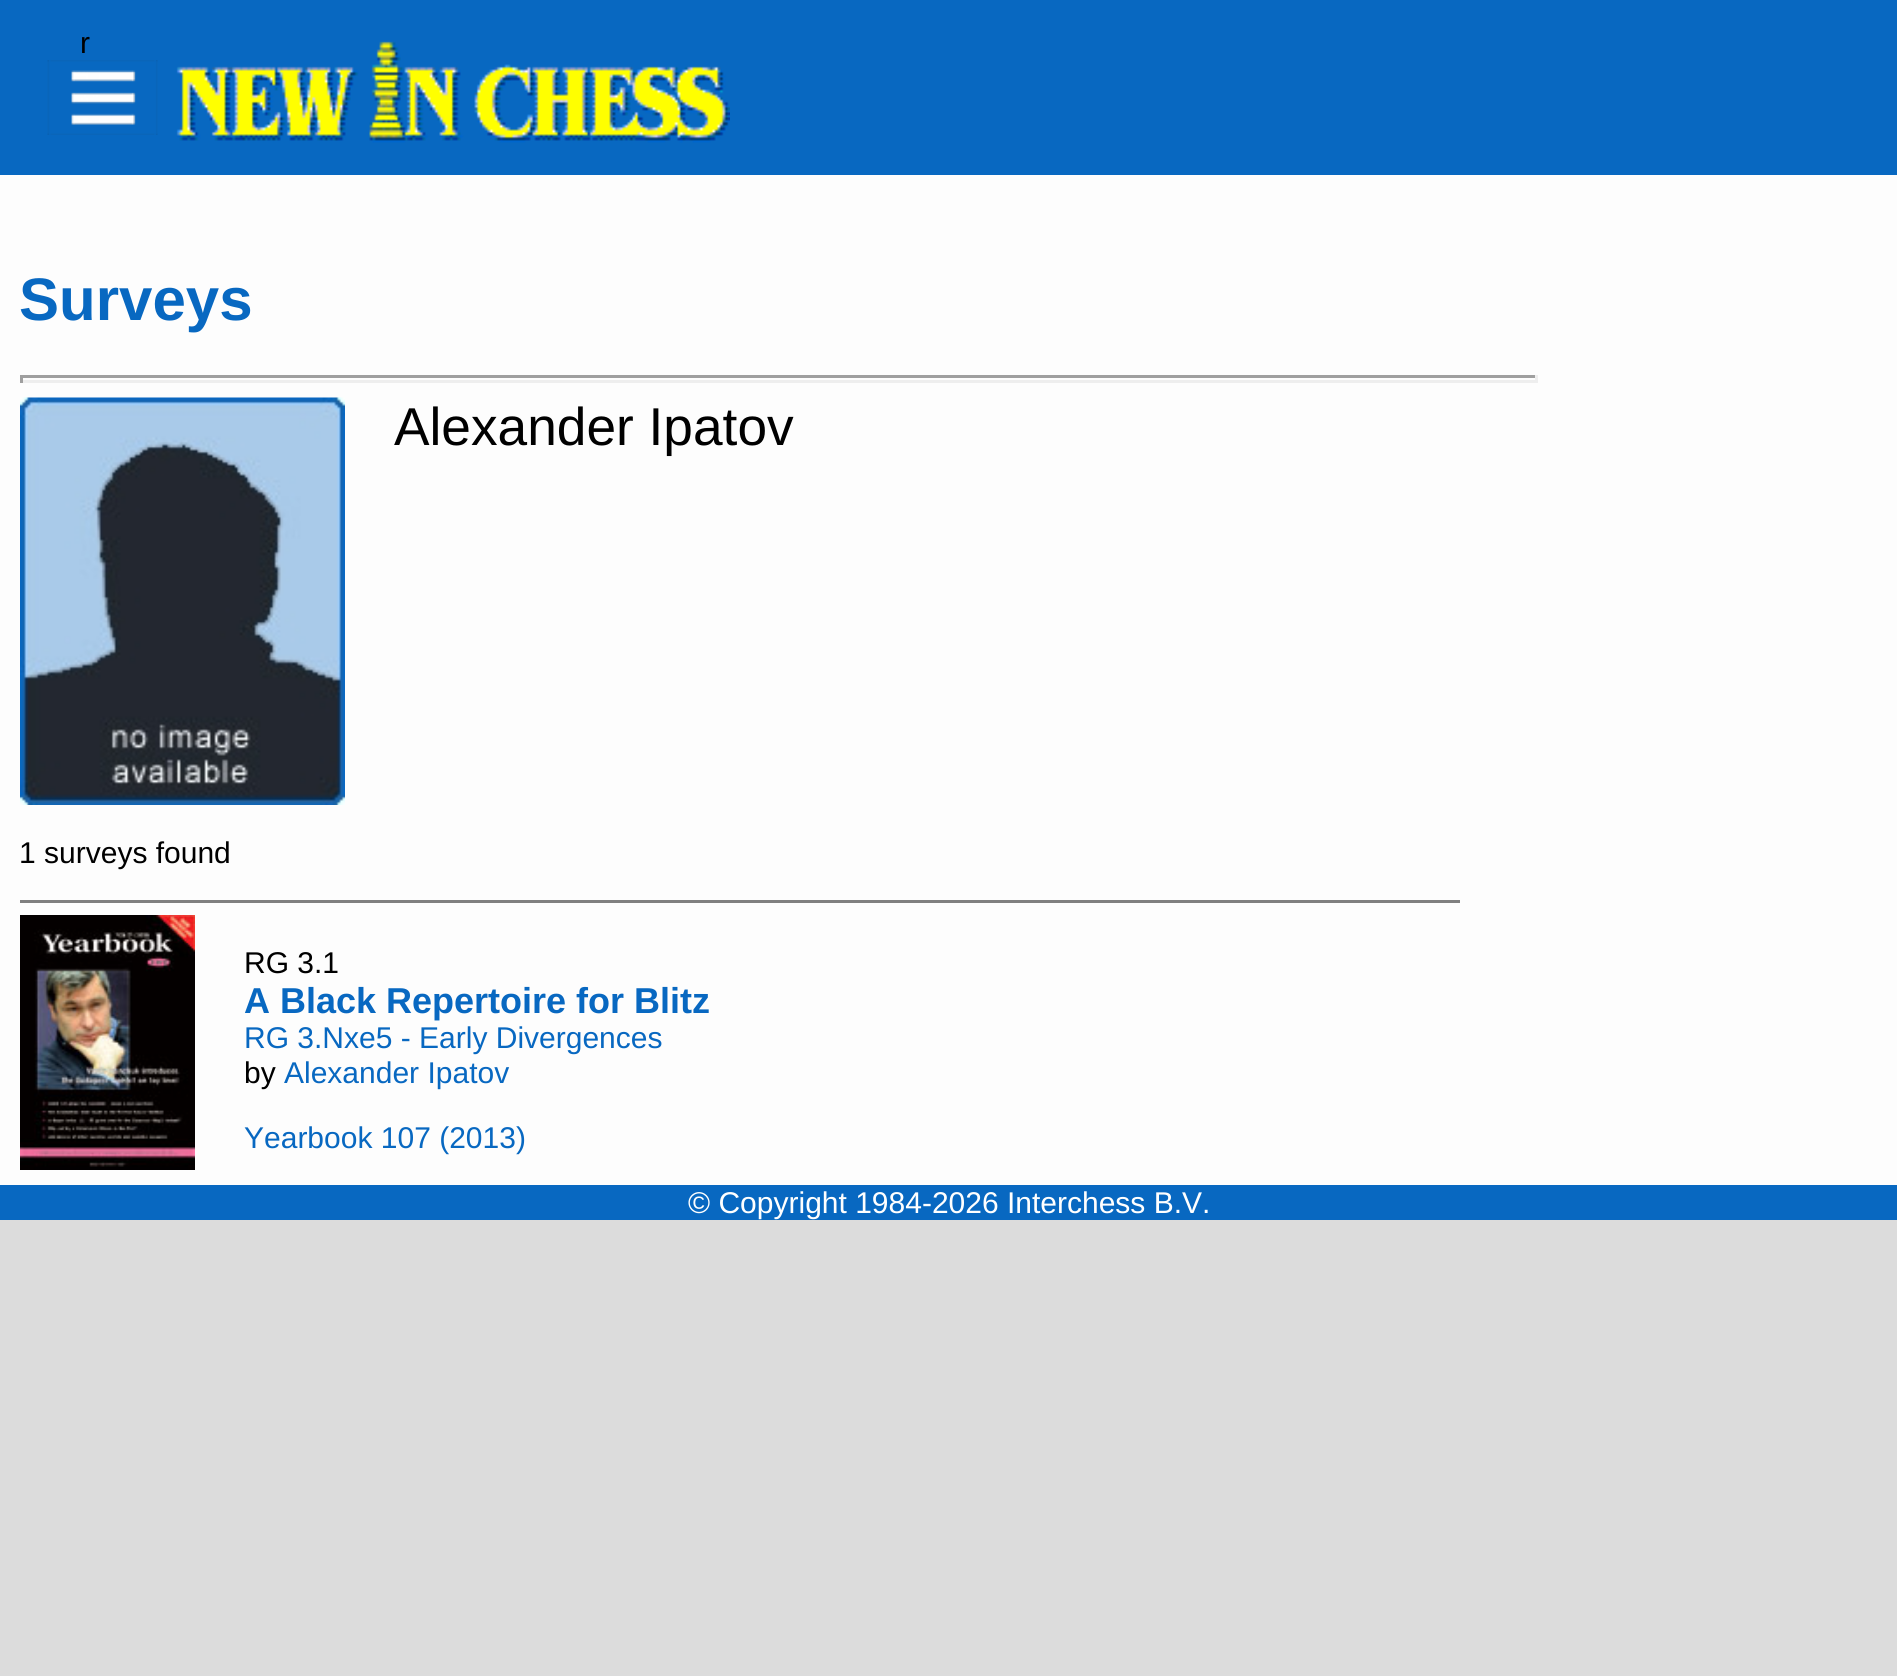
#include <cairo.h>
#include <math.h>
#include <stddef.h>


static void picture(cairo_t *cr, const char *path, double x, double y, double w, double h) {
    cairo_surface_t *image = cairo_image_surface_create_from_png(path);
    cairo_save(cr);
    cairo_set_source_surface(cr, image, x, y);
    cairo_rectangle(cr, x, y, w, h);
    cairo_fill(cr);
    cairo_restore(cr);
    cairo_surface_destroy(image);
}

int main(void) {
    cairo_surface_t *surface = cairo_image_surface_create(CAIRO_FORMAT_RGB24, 1897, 1676);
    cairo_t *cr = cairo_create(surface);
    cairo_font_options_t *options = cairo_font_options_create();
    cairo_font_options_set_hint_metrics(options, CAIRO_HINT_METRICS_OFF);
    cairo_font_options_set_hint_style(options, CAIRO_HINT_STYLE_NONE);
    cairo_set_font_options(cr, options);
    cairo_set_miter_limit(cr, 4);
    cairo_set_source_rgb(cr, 0.863, 0.863, 0.863);
    cairo_paint(cr);
    cairo_set_source_rgb(cr, 0.992, 0.992, 0.992);
    cairo_rectangle(cr, 0, 175, 1897, 1010);
    cairo_fill(cr);
    cairo_set_source_rgb(cr, 0.035, 0.408, 0.757);
    cairo_rectangle(cr, 0, 0, 1897, 175);
    cairo_fill(cr);
    picture(cr, "img1.png", 176, 41, 554, 102);
    cairo_select_font_face(cr, "Liberation Sans", CAIRO_FONT_SLANT_NORMAL, CAIRO_FONT_WEIGHT_NORMAL);
    cairo_set_font_size(cr, 30);
    cairo_set_source_rgb(cr, 0, 0, 0);
    cairo_move_to(cr, 80, 53);
    cairo_show_text(cr, "r");
    picture(cr, "img2.png", 47, 60, 111, 75);
    cairo_select_font_face(cr, "Liberation Sans", CAIRO_FONT_SLANT_NORMAL, CAIRO_FONT_WEIGHT_BOLD);
    cairo_set_font_size(cr, 60);
    cairo_set_source_rgb(cr, 0.035, 0.408, 0.757);
    cairo_move_to(cr, 19, 320);
    cairo_show_text(cr, "Surveys");
    cairo_set_source_rgb(cr, 0.624, 0.624, 0.624);
    cairo_rectangle(cr, 20, 375, 1518, 3);
    cairo_fill(cr);
    cairo_set_source_rgb(cr, 0.933, 0.933, 0.933);
    cairo_rectangle(cr, 1535, 375, 3, 8);
    cairo_fill(cr);
    cairo_rectangle(cr, 20, 380, 1518, 3);
    cairo_fill(cr);
    cairo_set_source_rgb(cr, 0.624, 0.624, 0.624);
    cairo_rectangle(cr, 20, 375, 3, 8);
    cairo_fill(cr);
    picture(cr, "img3.png", 20, 397, 325, 408);
    cairo_select_font_face(cr, "Liberation Sans", CAIRO_FONT_SLANT_NORMAL, CAIRO_FONT_WEIGHT_NORMAL);
    cairo_set_font_size(cr, 53.25);
    cairo_set_source_rgb(cr, 0, 0, 0);
    cairo_move_to(cr, 394, 445);
    cairo_show_text(cr, "Alexander Ipatov");
    cairo_set_font_size(cr, 30);
    cairo_move_to(cr, 19, 863);
    cairo_show_text(cr, "1 surveys found");
    cairo_set_source_rgb(cr, 0.502, 0.502, 0.502);
    cairo_rectangle(cr, 20, 900, 1440, 3);
    cairo_fill(cr);
    picture(cr, "img4.png", 20, 915, 175, 255);
    cairo_set_source_rgb(cr, 0, 0, 0);
    cairo_move_to(cr, 244, 973);
    cairo_show_text(cr, "RG 3.1");
    cairo_select_font_face(cr, "Liberation Sans", CAIRO_FONT_SLANT_NORMAL, CAIRO_FONT_WEIGHT_BOLD);
    cairo_set_font_size(cr, 36);
    cairo_set_source_rgb(cr, 0.035, 0.408, 0.757);
    cairo_move_to(cr, 244, 1013);
    cairo_show_text(cr, "A Black Repertoire for Blitz");
    cairo_select_font_face(cr, "Liberation Sans", CAIRO_FONT_SLANT_NORMAL, CAIRO_FONT_WEIGHT_NORMAL);
    cairo_set_font_size(cr, 30);
    cairo_move_to(cr, 244, 1048);
    cairo_show_text(cr, "RG 3.Nxe5 - Early Divergences");
    cairo_set_source_rgb(cr, 0, 0, 0);
    cairo_move_to(cr, 244, 1083);
    cairo_show_text(cr, "by");
    cairo_set_source_rgb(cr, 0.035, 0.408, 0.757);
    cairo_move_to(cr, 284, 1083);
    cairo_show_text(cr, "Alexander Ipatov");
    cairo_move_to(cr, 244, 1148);
    cairo_show_text(cr, "Yearbook 107 (2013)");
    cairo_rectangle(cr, 0, 1185, 1897, 35);
    cairo_fill(cr);
    cairo_set_source_rgb(cr, 1, 1, 1);
    cairo_move_to(cr, 688, 1213);
    cairo_show_text(cr, "© Copyright 1984-2026 Interchess B.V.");
    cairo_surface_write_to_png(surface, "page.png");
    cairo_font_options_destroy(options);
    cairo_destroy(cr);
    cairo_surface_destroy(surface);
    return 0;
}
